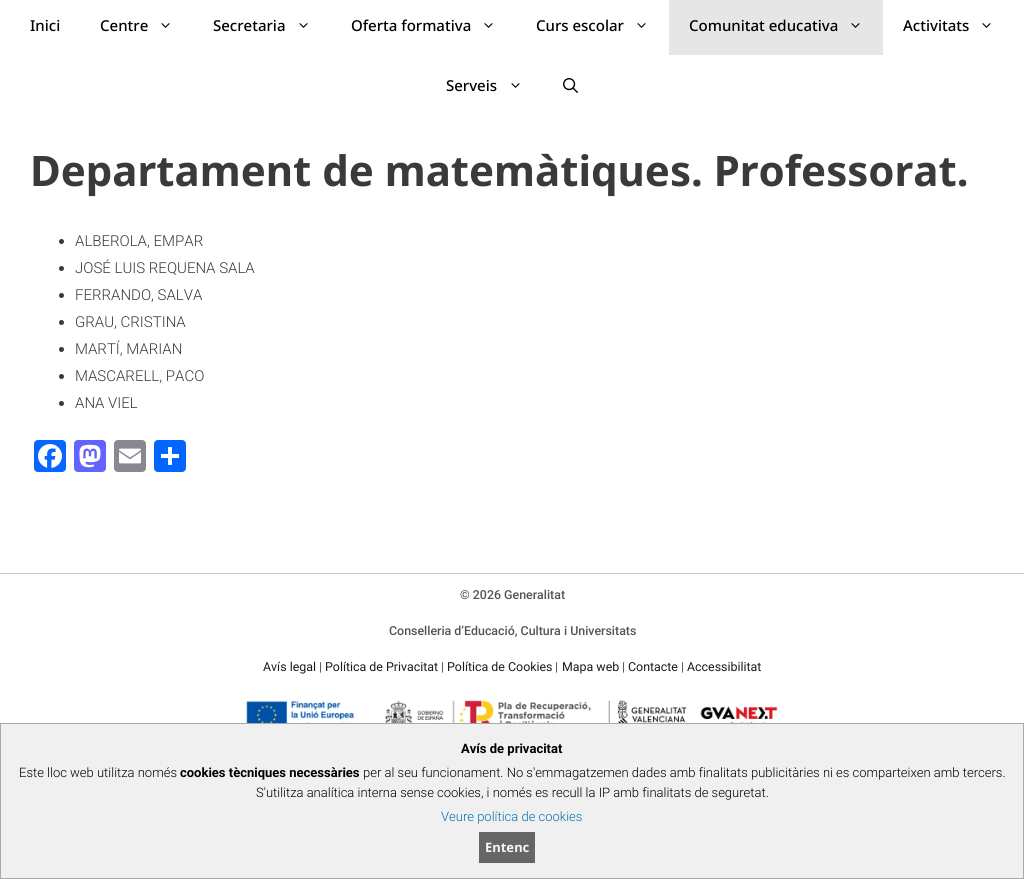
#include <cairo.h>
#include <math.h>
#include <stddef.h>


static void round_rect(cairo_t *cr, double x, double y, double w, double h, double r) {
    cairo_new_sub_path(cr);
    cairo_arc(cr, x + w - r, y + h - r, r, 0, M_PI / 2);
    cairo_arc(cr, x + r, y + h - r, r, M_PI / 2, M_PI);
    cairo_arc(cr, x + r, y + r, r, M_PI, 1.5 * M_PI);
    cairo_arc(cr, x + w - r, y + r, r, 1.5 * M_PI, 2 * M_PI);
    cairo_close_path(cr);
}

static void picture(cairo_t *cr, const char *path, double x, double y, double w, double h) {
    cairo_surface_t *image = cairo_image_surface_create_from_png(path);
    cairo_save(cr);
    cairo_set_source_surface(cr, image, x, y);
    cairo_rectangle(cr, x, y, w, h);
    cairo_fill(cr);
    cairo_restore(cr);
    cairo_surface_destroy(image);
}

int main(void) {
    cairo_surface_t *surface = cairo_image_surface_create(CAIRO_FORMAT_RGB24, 1024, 879);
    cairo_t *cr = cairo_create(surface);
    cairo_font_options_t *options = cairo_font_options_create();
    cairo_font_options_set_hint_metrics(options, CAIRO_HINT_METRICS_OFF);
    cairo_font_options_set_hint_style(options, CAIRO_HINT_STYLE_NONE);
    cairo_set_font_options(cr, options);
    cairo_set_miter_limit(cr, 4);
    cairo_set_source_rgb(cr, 1, 1, 1);
    cairo_paint(cr);
    cairo_select_font_face(cr, "Noto Sans Medium", CAIRO_FONT_SLANT_NORMAL, CAIRO_FONT_WEIGHT_NORMAL);
    cairo_set_font_size(cr, 15);
    cairo_set_source_rgb(cr, 0, 0, 0);
    cairo_move_to(cr, 30, 31);
    cairo_show_text(cr, "Inici");
    cairo_move_to(cr, 100, 31);
    cairo_show_text(cr, "Centre");
    picture(cr, "img1.png", 161, 23, 9, 5);
    cairo_move_to(cr, 213, 31);
    cairo_show_text(cr, "Secretaria");
    picture(cr, "img1.png", 299, 23, 9, 5);
    cairo_move_to(cr, 351, 31);
    cairo_show_text(cr, "Oferta formativa");
    picture(cr, "img1.png", 484, 23, 9, 5);
    cairo_move_to(cr, 536, 31);
    cairo_show_text(cr, "Curs escolar");
    picture(cr, "img1.png", 637, 23, 9, 5);
    cairo_set_source_rgb(cr, 0.902, 0.902, 0.902);
    cairo_rectangle(cr, 669, 0, 214, 55);
    cairo_fill(cr);
    cairo_set_source_rgb(cr, 0, 0, 0);
    cairo_move_to(cr, 689, 31);
    cairo_show_text(cr, "Comunitat educativa");
    picture(cr, "img2.png", 851, 23, 9, 5);
    cairo_move_to(cr, 903, 31);
    cairo_show_text(cr, "Activitats");
    picture(cr, "img1.png", 982, 23, 9, 5);
    cairo_move_to(cr, 446, 91);
    cairo_show_text(cr, "Serveis");
    picture(cr, "img1.png", 511, 83, 9, 5);
    picture(cr, "img3.png", 563, 78, 15, 15);
    cairo_select_font_face(cr, "Noto Sans", CAIRO_FONT_SLANT_NORMAL, CAIRO_FONT_WEIGHT_BOLD);
    cairo_set_font_size(cr, 42);
    cairo_set_source_rgb(cr, 0.227, 0.227, 0.227);
    cairo_move_to(cr, 30, 186);
    cairo_show_text(cr, "Departament de matemàtiques. Professorat.");
    cairo_new_path(cr);
    cairo_arc(cr, 61.5, 241.5, 2.5, 0, 2 * M_PI);
    cairo_fill(cr);
    cairo_select_font_face(cr, "Roboto Light", CAIRO_FONT_SLANT_NORMAL, CAIRO_FONT_WEIGHT_NORMAL);
    cairo_set_font_size(cr, 15);
    cairo_move_to(cr, 75, 246);
    cairo_show_text(cr, "ALBEROLA, EMPAR");
    cairo_new_path(cr);
    cairo_arc(cr, 61.5, 268.5, 2.5, 0, 2 * M_PI);
    cairo_fill(cr);
    cairo_move_to(cr, 75, 273);
    cairo_show_text(cr, "JOSÉ LUIS REQUENA SALA");
    cairo_new_path(cr);
    cairo_arc(cr, 61.5, 295.5, 2.5, 0, 2 * M_PI);
    cairo_fill(cr);
    cairo_move_to(cr, 75, 300);
    cairo_show_text(cr, "FERRANDO, SALVA");
    cairo_new_path(cr);
    cairo_arc(cr, 61.5, 322.5, 2.5, 0, 2 * M_PI);
    cairo_fill(cr);
    cairo_move_to(cr, 75, 327);
    cairo_show_text(cr, "GRAU, CRISTINA");
    cairo_new_path(cr);
    cairo_arc(cr, 61.5, 349.5, 2.5, 0, 2 * M_PI);
    cairo_fill(cr);
    cairo_move_to(cr, 75, 354);
    cairo_show_text(cr, "MARTÍ, MARIAN");
    cairo_new_path(cr);
    cairo_arc(cr, 61.5, 376.5, 2.5, 0, 2 * M_PI);
    cairo_fill(cr);
    cairo_move_to(cr, 75, 381);
    cairo_show_text(cr, "MASCARELL, PACO");
    cairo_new_path(cr);
    cairo_arc(cr, 61.5, 403.5, 2.5, 0, 2 * M_PI);
    cairo_fill(cr);
    cairo_move_to(cr, 75, 408);
    cairo_show_text(cr, "ANA VIEL");
    cairo_set_source_rgb(cr, 0.031, 0.4, 1);
    round_rect(cr, 34, 440, 32, 32, 4);
    cairo_fill(cr);
    picture(cr, "img4.png", 38, 444, 24, 24);
    cairo_set_source_rgb(cr, 0.388, 0.392, 1);
    round_rect(cr, 74, 440, 32, 32, 4);
    cairo_fill(cr);
    picture(cr, "img5.png", 79, 444, 22, 24);
    cairo_set_source_rgb(cr, 0.533, 0.537, 0.565);
    round_rect(cr, 114, 440, 32, 32, 4);
    cairo_fill(cr);
    picture(cr, "img6.png", 119, 448, 22, 16);
    cairo_set_source_rgb(cr, 0.004, 0.4, 1);
    round_rect(cr, 154, 440, 32, 32, 4);
    cairo_fill(cr);
    cairo_set_source_rgb(cr, 1, 1, 1);
    cairo_rectangle(cr, 168, 447, 4, 18);
    cairo_fill(cr);
    cairo_rectangle(cr, 161, 454, 18, 4);
    cairo_fill(cr);
    cairo_set_source_rgb(cr, 0.788, 0.788, 0.769);
    cairo_rectangle(cr, 0, 573, 1024, 1);
    cairo_fill(cr);
    cairo_select_font_face(cr, "Roboto Medium", CAIRO_FONT_SLANT_NORMAL, CAIRO_FONT_WEIGHT_NORMAL);
    cairo_set_font_size(cr, 12.4);
    cairo_set_source_rgb(cr, 0.337, 0.325, 0.325);
    cairo_move_to(cr, 460, 599);
    cairo_show_text(cr, "© 2026 Generalitat");
    cairo_move_to(cr, 389, 635);
    cairo_show_text(cr, "Conselleria d’Educació, Cultura i Universitats");
    cairo_select_font_face(cr, "Roboto", CAIRO_FONT_SLANT_NORMAL, CAIRO_FONT_WEIGHT_NORMAL);
    cairo_set_source_rgb(cr, 0.106, 0.106, 0.106);
    cairo_move_to(cr, 263, 671);
    cairo_show_text(cr, "Avís legal");
    cairo_select_font_face(cr, "Roboto Medium", CAIRO_FONT_SLANT_NORMAL, CAIRO_FONT_WEIGHT_NORMAL);
    cairo_set_source_rgb(cr, 0.337, 0.325, 0.325);
    cairo_move_to(cr, 319, 671);
    cairo_show_text(cr, "|");
    cairo_select_font_face(cr, "Roboto", CAIRO_FONT_SLANT_NORMAL, CAIRO_FONT_WEIGHT_NORMAL);
    cairo_set_source_rgb(cr, 0.106, 0.106, 0.106);
    cairo_move_to(cr, 325, 671);
    cairo_show_text(cr, "Política de Privacitat");
    cairo_select_font_face(cr, "Roboto Medium", CAIRO_FONT_SLANT_NORMAL, CAIRO_FONT_WEIGHT_NORMAL);
    cairo_set_source_rgb(cr, 0.337, 0.325, 0.325);
    cairo_move_to(cr, 441, 671);
    cairo_show_text(cr, "|");
    cairo_select_font_face(cr, "Roboto", CAIRO_FONT_SLANT_NORMAL, CAIRO_FONT_WEIGHT_NORMAL);
    cairo_set_source_rgb(cr, 0.106, 0.106, 0.106);
    cairo_move_to(cr, 447, 671);
    cairo_show_text(cr, "Política de Cookies");
    cairo_select_font_face(cr, "Roboto Medium", CAIRO_FONT_SLANT_NORMAL, CAIRO_FONT_WEIGHT_NORMAL);
    cairo_set_source_rgb(cr, 0.337, 0.325, 0.325);
    cairo_move_to(cr, 555, 671);
    cairo_show_text(cr, "|");
    cairo_select_font_face(cr, "Roboto", CAIRO_FONT_SLANT_NORMAL, CAIRO_FONT_WEIGHT_NORMAL);
    cairo_set_source_rgb(cr, 0.106, 0.106, 0.106);
    cairo_move_to(cr, 562, 671);
    cairo_show_text(cr, "Mapa web");
    cairo_select_font_face(cr, "Roboto Medium", CAIRO_FONT_SLANT_NORMAL, CAIRO_FONT_WEIGHT_NORMAL);
    cairo_set_source_rgb(cr, 0.337, 0.325, 0.325);
    cairo_move_to(cr, 622, 671);
    cairo_show_text(cr, "|");
    cairo_select_font_face(cr, "Roboto", CAIRO_FONT_SLANT_NORMAL, CAIRO_FONT_WEIGHT_NORMAL);
    cairo_set_source_rgb(cr, 0.106, 0.106, 0.106);
    cairo_move_to(cr, 628, 671);
    cairo_show_text(cr, "Contacte");
    cairo_select_font_face(cr, "Roboto Medium", CAIRO_FONT_SLANT_NORMAL, CAIRO_FONT_WEIGHT_NORMAL);
    cairo_set_source_rgb(cr, 0.337, 0.325, 0.325);
    cairo_move_to(cr, 681, 671);
    cairo_show_text(cr, "|");
    cairo_select_font_face(cr, "Roboto", CAIRO_FONT_SLANT_NORMAL, CAIRO_FONT_WEIGHT_NORMAL);
    cairo_set_source_rgb(cr, 0.106, 0.106, 0.106);
    cairo_move_to(cr, 687, 671);
    cairo_show_text(cr, "Accessibilitat");
    picture(cr, "img7.png", 246, 700, 532, 23);
    cairo_set_source_rgb(cr, 0.941, 0.941, 0.941);
    cairo_rectangle(cr, 0.5, 723.5, 1023, 155);
    cairo_fill_preserve(cr);
    cairo_set_source_rgb(cr, 0.663, 0.663, 0.663);
    cairo_set_line_width(cr, 1);
    cairo_stroke(cr);
    cairo_select_font_face(cr, "Roboto", CAIRO_FONT_SLANT_NORMAL, CAIRO_FONT_WEIGHT_BOLD);
    cairo_set_font_size(cr, 13);
    cairo_set_source_rgb(cr, 0, 0, 0);
    cairo_move_to(cr, 461, 753);
    cairo_show_text(cr, "Avís de privacitat");
    cairo_select_font_face(cr, "Roboto Light", CAIRO_FONT_SLANT_NORMAL, CAIRO_FONT_WEIGHT_NORMAL);
    cairo_move_to(cr, 19, 777);
    cairo_show_text(cr, "Este lloc web utilitza només");
    cairo_select_font_face(cr, "Roboto", CAIRO_FONT_SLANT_NORMAL, CAIRO_FONT_WEIGHT_BOLD);
    cairo_move_to(cr, 180, 777);
    cairo_show_text(cr, "cookies tècniques necessàries");
    cairo_select_font_face(cr, "Roboto Light", CAIRO_FONT_SLANT_NORMAL, CAIRO_FONT_WEIGHT_NORMAL);
    cairo_move_to(cr, 363, 777);
    cairo_show_text(cr, "per al seu funcionament. No s'emmagatzemen dades amb finalitats publicitàries ni es comparteixen amb tercers.");
    cairo_move_to(cr, 256, 797);
    cairo_show_text(cr, "S'utilitza analítica interna sense cookies, i només es recull la IP amb finalitats de seguretat.");
    cairo_set_source_rgb(cr, 0, 0.451, 0.667);
    cairo_move_to(cr, 441, 821);
    cairo_show_text(cr, "Veure política de cookies");
    cairo_set_source_rgb(cr, 0.4, 0.4, 0.4);
    cairo_rectangle(cr, 479, 832, 56, 31);
    cairo_fill(cr);
    cairo_select_font_face(cr, "Noto Sans", CAIRO_FONT_SLANT_NORMAL, CAIRO_FONT_WEIGHT_BOLD);
    cairo_set_source_rgb(cr, 0.961, 0.961, 0.961);
    cairo_move_to(cr, 485, 852);
    cairo_show_text(cr, "Entenc");
    cairo_surface_write_to_png(surface, "page.png");
    cairo_font_options_destroy(options);
    cairo_destroy(cr);
    cairo_surface_destroy(surface);
    return 0;
}
